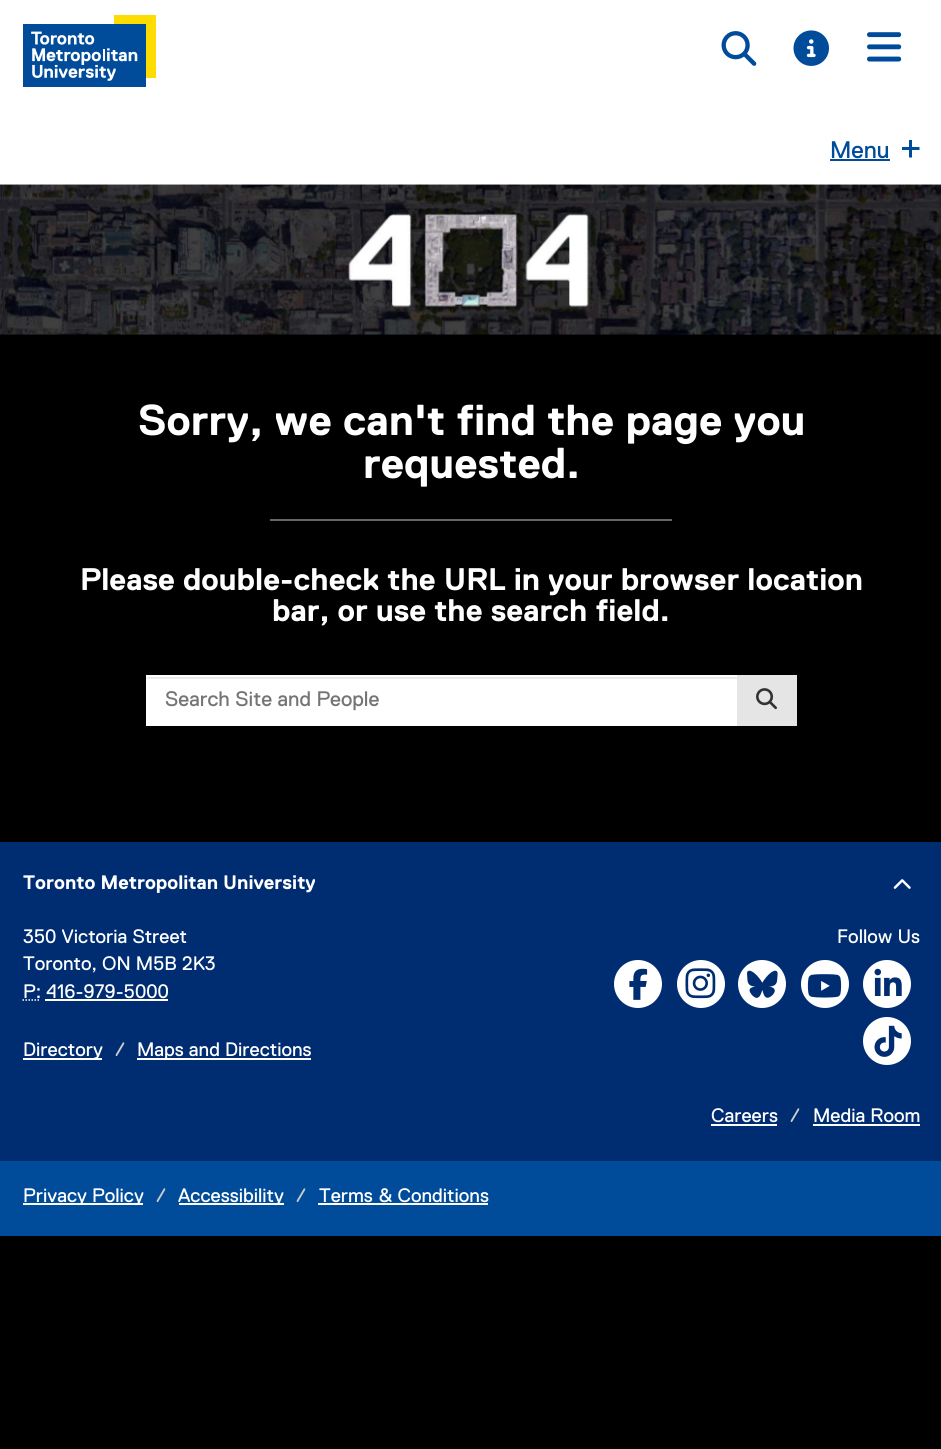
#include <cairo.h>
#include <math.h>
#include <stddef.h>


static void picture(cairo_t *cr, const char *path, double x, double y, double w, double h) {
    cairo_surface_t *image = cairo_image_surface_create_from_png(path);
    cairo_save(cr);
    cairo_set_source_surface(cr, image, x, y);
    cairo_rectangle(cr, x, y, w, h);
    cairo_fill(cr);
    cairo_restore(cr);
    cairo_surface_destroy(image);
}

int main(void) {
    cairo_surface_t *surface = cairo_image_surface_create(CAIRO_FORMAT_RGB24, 941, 1449);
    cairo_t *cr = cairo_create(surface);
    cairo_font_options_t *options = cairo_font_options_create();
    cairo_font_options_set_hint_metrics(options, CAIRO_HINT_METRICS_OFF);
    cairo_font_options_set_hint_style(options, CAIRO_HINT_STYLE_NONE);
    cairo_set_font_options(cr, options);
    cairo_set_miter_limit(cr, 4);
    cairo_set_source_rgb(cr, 0, 0, 0);
    cairo_paint(cr);
    cairo_set_source_rgb(cr, 1, 1, 1);
    cairo_rectangle(cr, 0, 0, 941, 185);
    cairo_fill(cr);
    picture(cr, "img1.png", 23, 15, 133, 72);
    picture(cr, "img2.png", 721, 31, 36, 35);
    picture(cr, "img3.png", 793, 30, 36, 36);
    picture(cr, "img4.png", 867, 32, 35, 30);
    cairo_select_font_face(cr, "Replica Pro", CAIRO_FONT_SLANT_NORMAL, CAIRO_FONT_WEIGHT_NORMAL);
    cairo_set_font_size(cr, 24);
    cairo_set_source_rgb(cr, 0, 0.298, 0.608);
    cairo_move_to(cr, 830, 158);
    cairo_show_text(cr, "Menu");
    cairo_rectangle(cr, 830, 159, 60, 2);
    cairo_fill(cr);
    picture(cr, "img5.png", 902, 140, 18, 18);
    picture(cr, "img6.png", 0, 184, 941, 151);
    cairo_select_font_face(cr, "Replica Pro", CAIRO_FONT_SLANT_NORMAL, CAIRO_FONT_WEIGHT_BOLD);
    cairo_set_font_size(cr, 43.25);
    cairo_set_source_rgb(cr, 1, 1, 1);
    cairo_move_to(cr, 138, 435);
    cairo_show_text(cr, "Sorry, we can't find the page you");
    cairo_move_to(cr, 363, 478);
    cairo_show_text(cr, "requested.");
    cairo_set_source_rgb(cr, 0.4, 0.4, 0.4);
    cairo_rectangle(cr, 270, 519, 402, 2);
    cairo_fill(cr);
    cairo_set_font_size(cr, 31.2);
    cairo_set_source_rgb(cr, 1, 1, 1);
    cairo_move_to(cr, 80, 590);
    cairo_show_text(cr, "Please double-check the URL in your browser location");
    cairo_move_to(cr, 272, 621);
    cairo_show_text(cr, "bar, or use the search field.");
    cairo_rectangle(cr, 146, 675, 591, 51);
    cairo_fill(cr);
    cairo_set_source_rgb(cr, 0.925, 0.925, 0.925);
    cairo_rectangle(cr, 147, 677, 590, 2);
    cairo_fill(cr);
    cairo_select_font_face(cr, "Replica Pro", CAIRO_FONT_SLANT_NORMAL, CAIRO_FONT_WEIGHT_NORMAL);
    cairo_set_font_size(cr, 21);
    cairo_set_source_rgb(cr, 0.459, 0.459, 0.459);
    cairo_move_to(cr, 165, 706);
    cairo_show_text(cr, "Search Site and People");
    cairo_set_source_rgb(cr, 0.898, 0.898, 0.898);
    cairo_rectangle(cr, 737, 675, 60, 51);
    cairo_fill(cr);
    picture(cr, "img7.png", 756, 688, 21, 22);
    cairo_set_source_rgb(cr, 0, 0.176, 0.447);
    cairo_rectangle(cr, 0, 842, 941, 319);
    cairo_fill(cr);
    cairo_select_font_face(cr, "Replica Pro", CAIRO_FONT_SLANT_NORMAL, CAIRO_FONT_WEIGHT_BOLD);
    cairo_set_font_size(cr, 19.5);
    cairo_set_source_rgb(cr, 1, 1, 1);
    cairo_move_to(cr, 23, 889);
    cairo_show_text(cr, "Toronto Metropolitan University");
    picture(cr, "img8.png", 893, 879, 18, 10);
    cairo_select_font_face(cr, "Replica Pro", CAIRO_FONT_SLANT_NORMAL, CAIRO_FONT_WEIGHT_NORMAL);
    cairo_move_to(cr, 23, 943);
    cairo_show_text(cr, "350 Victoria Street");
    cairo_move_to(cr, 23, 970);
    cairo_show_text(cr, "Toronto, ON M5B 2K3");
    cairo_move_to(cr, 23, 998);
    cairo_show_text(cr, "P: 416-979-5000");
    cairo_new_path(cr);
    cairo_move_to(cr, 22.5, 1000);
    cairo_line_to(cr, 40.5, 1000);
    cairo_set_line_width(cr, 1.5);
    cairo_set_dash(cr, (double[]){1.5, 1.5}, 2, 0);
    cairo_stroke(cr);
    cairo_rectangle(cr, 45, 999, 123, 2);
    cairo_fill(cr);
    cairo_rectangle(cr, 23, 1058, 79, 2);
    cairo_fill(cr);
    cairo_move_to(cr, 23, 1056);
    cairo_show_text(cr, "Directory");
    cairo_set_source_rgb(cr, 0.8, 0.8, 0.8);
    cairo_move_to(cr, 115, 1056);
    cairo_show_text(cr, "/");
    cairo_set_source_rgb(cr, 1, 1, 1);
    cairo_rectangle(cr, 137, 1058, 174, 2);
    cairo_fill(cr);
    cairo_move_to(cr, 137, 1056);
    cairo_show_text(cr, "Maps and Directions");
    cairo_move_to(cr, 837, 943);
    cairo_show_text(cr, "Follow Us");
    cairo_new_path(cr);
    cairo_arc(cr, 638, 984, 24, 0, 2 * M_PI);
    cairo_fill(cr);
    picture(cr, "img9.png", 629, 968, 19, 32);
    cairo_arc(cr, 701, 984, 24, 0, 2 * M_PI);
    cairo_fill(cr);
    picture(cr, "img10.png", 685, 968, 31, 31);
    cairo_arc(cr, 762, 984, 24, 0, 2 * M_PI);
    cairo_fill(cr);
    picture(cr, "img11.png", 747, 970, 31, 28);
    cairo_arc(cr, 825, 984, 24, 0, 2 * M_PI);
    cairo_fill(cr);
    picture(cr, "img12.png", 807, 974, 35, 24);
    cairo_arc(cr, 887, 984, 24, 0, 2 * M_PI);
    cairo_fill(cr);
    picture(cr, "img13.png", 874, 968, 28, 28);
    cairo_arc(cr, 887, 1041, 24, 0, 2 * M_PI);
    cairo_fill(cr);
    picture(cr, "img14.png", 874, 1025, 28, 32);
    cairo_move_to(cr, 711, 1122);
    cairo_show_text(cr, "Careers");
    cairo_rectangle(cr, 711, 1124, 66, 2);
    cairo_fill(cr);
    cairo_set_source_rgb(cr, 0.8, 0.8, 0.8);
    cairo_move_to(cr, 790, 1122);
    cairo_show_text(cr, "/");
    cairo_set_source_rgb(cr, 1, 1, 1);
    cairo_move_to(cr, 813, 1122);
    cairo_show_text(cr, "Media Room");
    cairo_rectangle(cr, 813, 1124, 107, 2);
    cairo_fill(cr);
    cairo_set_source_rgb(cr, 0, 0.298, 0.608);
    cairo_rectangle(cr, 0, 1161, 941, 75);
    cairo_fill(cr);
    cairo_set_source_rgb(cr, 1, 1, 1);
    cairo_rectangle(cr, 23, 1203, 120, 2);
    cairo_fill(cr);
    cairo_move_to(cr, 23, 1202);
    cairo_show_text(cr, "Privacy Policy");
    cairo_set_source_rgb(cr, 0.8, 0.8, 0.8);
    cairo_move_to(cr, 156, 1202);
    cairo_show_text(cr, "/");
    cairo_set_source_rgb(cr, 1, 1, 1);
    cairo_rectangle(cr, 179, 1203, 105, 2);
    cairo_fill(cr);
    cairo_move_to(cr, 178, 1202);
    cairo_show_text(cr, "Accessibility");
    cairo_set_source_rgb(cr, 0.8, 0.8, 0.8);
    cairo_move_to(cr, 296, 1202);
    cairo_show_text(cr, "/");
    cairo_set_source_rgb(cr, 1, 1, 1);
    cairo_move_to(cr, 319, 1202);
    cairo_show_text(cr, "Terms & Conditions");
    cairo_rectangle(cr, 318, 1203, 170, 2);
    cairo_fill(cr);
    cairo_surface_write_to_png(surface, "page.png");
    cairo_font_options_destroy(options);
    cairo_destroy(cr);
    cairo_surface_destroy(surface);
    return 0;
}
